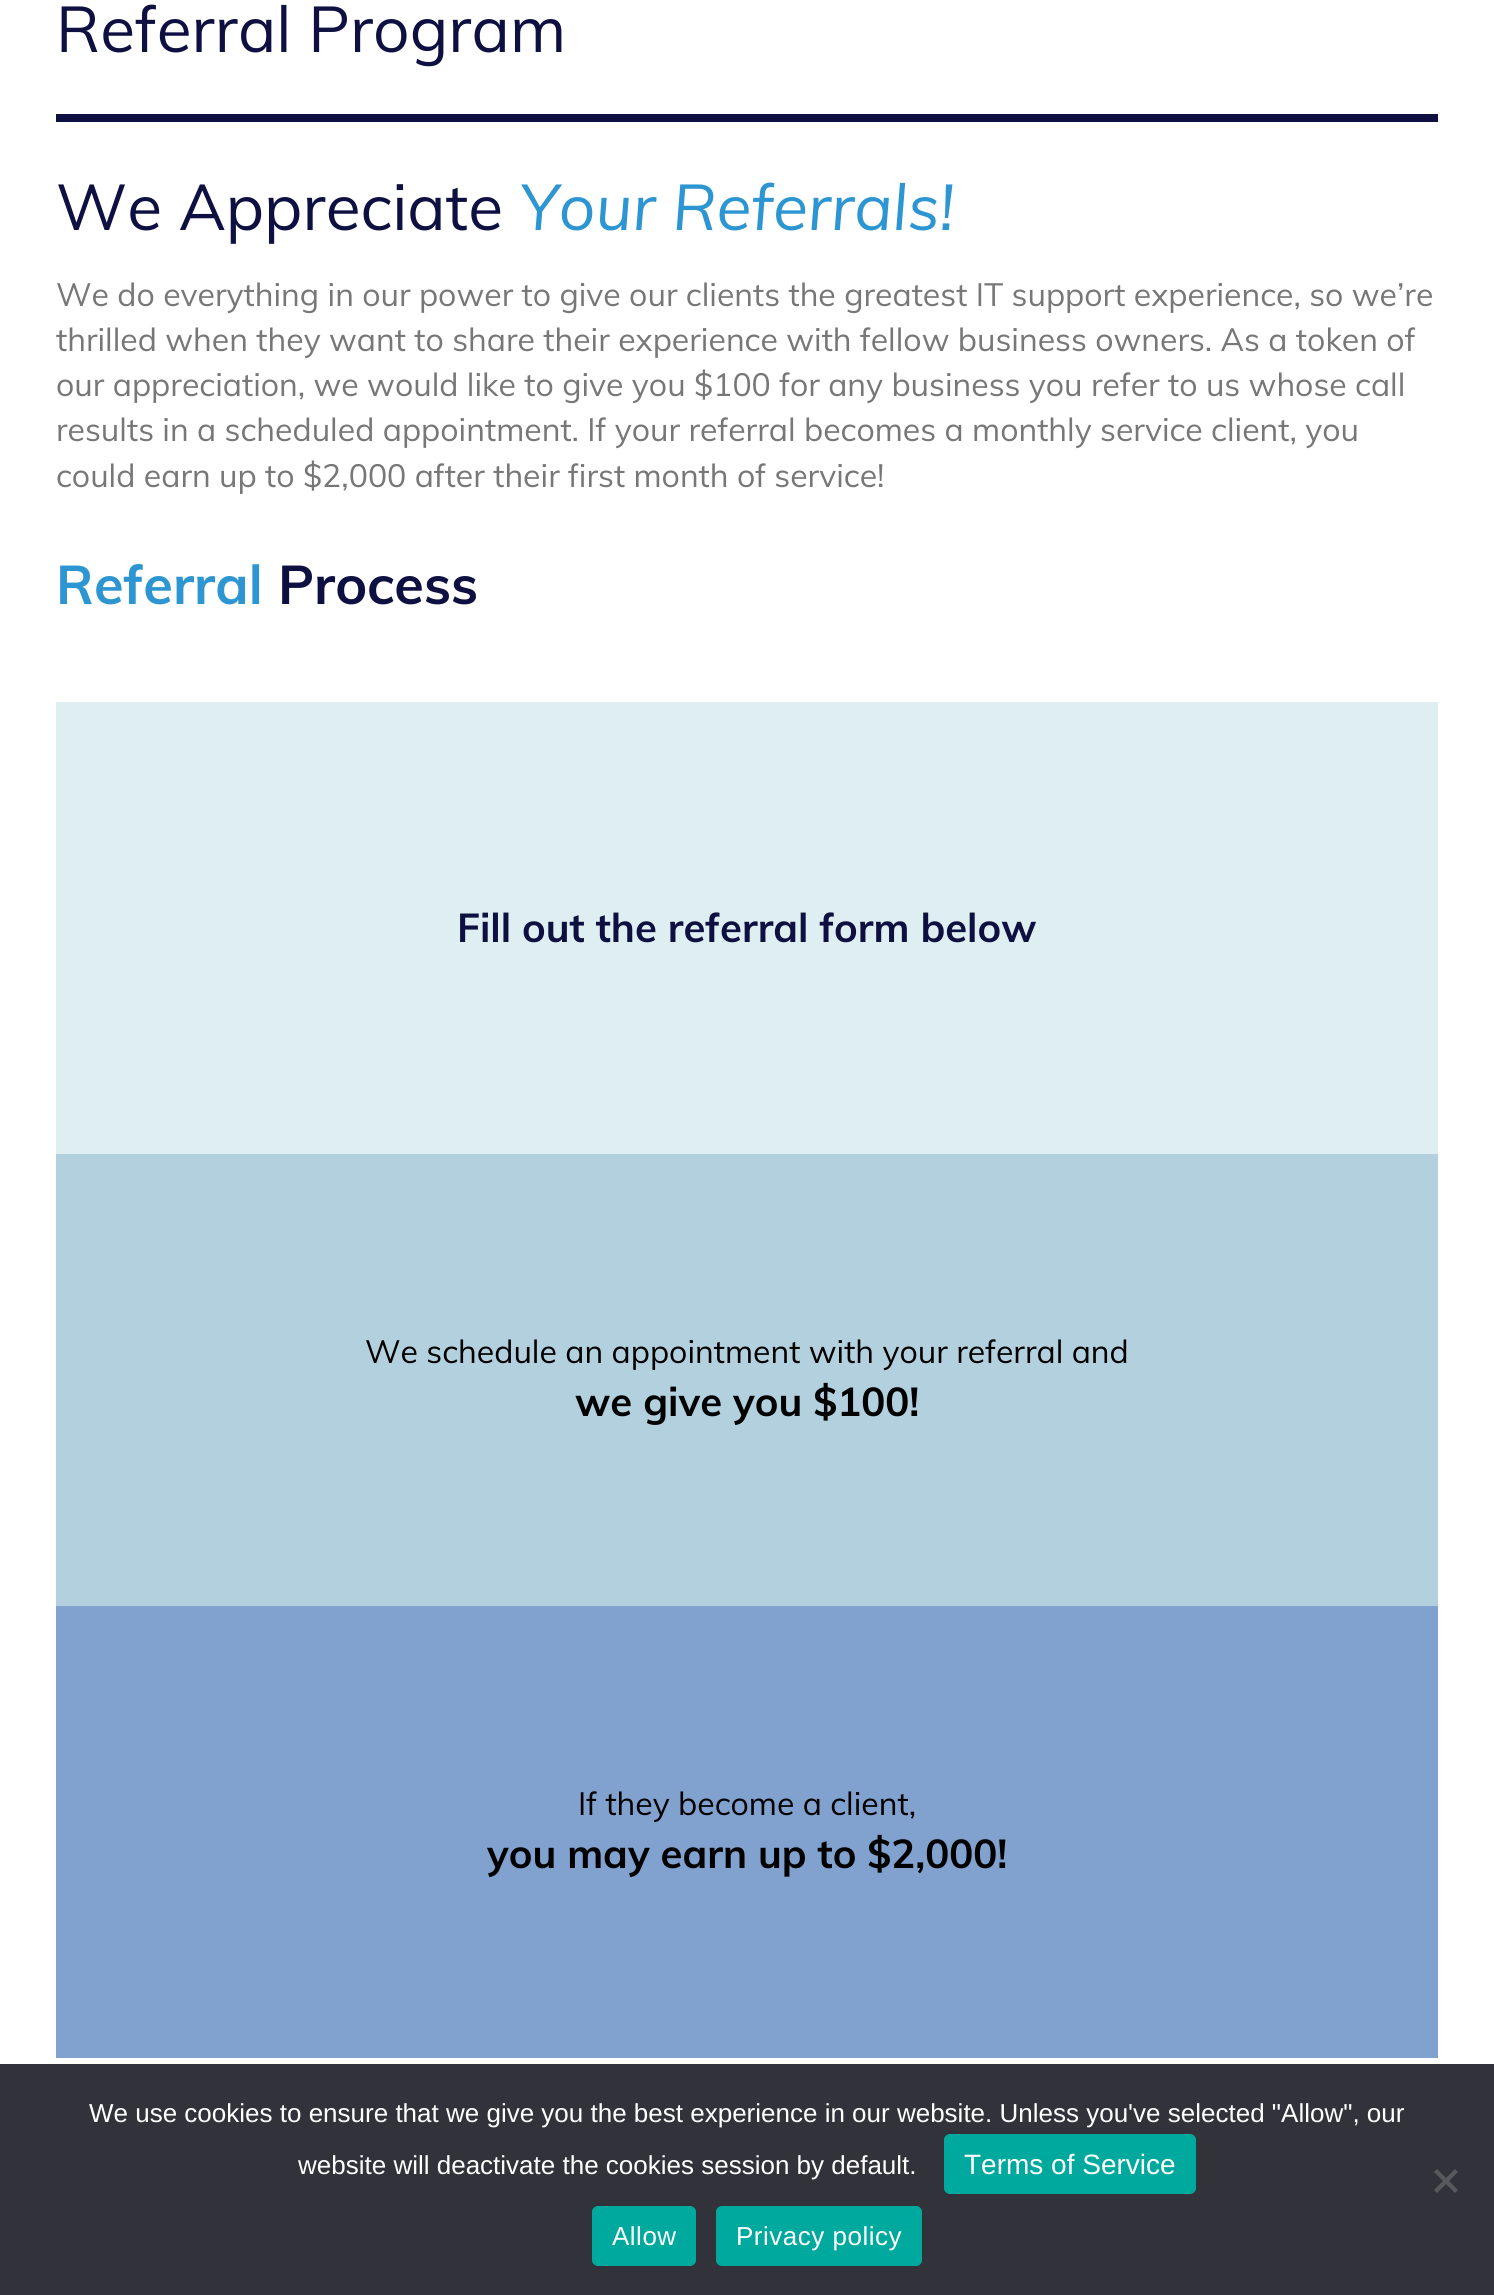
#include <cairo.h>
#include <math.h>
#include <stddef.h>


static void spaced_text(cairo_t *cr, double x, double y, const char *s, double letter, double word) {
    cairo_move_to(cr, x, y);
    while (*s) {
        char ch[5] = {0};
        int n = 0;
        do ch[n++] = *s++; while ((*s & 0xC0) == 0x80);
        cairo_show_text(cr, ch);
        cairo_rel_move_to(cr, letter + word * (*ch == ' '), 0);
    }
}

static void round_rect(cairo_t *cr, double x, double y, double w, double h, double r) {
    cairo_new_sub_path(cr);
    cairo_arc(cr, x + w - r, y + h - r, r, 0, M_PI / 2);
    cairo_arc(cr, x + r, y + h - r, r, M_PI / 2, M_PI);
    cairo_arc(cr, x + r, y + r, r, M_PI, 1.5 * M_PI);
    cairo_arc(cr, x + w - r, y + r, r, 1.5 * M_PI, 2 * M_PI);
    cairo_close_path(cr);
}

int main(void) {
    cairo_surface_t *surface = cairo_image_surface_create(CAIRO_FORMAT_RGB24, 1494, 2295);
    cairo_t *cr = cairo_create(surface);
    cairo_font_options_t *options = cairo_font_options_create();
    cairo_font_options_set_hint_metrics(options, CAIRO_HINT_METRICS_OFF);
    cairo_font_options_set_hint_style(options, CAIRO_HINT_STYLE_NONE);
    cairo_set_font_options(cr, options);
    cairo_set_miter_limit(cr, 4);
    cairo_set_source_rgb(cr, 1, 1, 1);
    cairo_paint(cr);
    cairo_select_font_face(cr, "Muli", CAIRO_FONT_SLANT_NORMAL, CAIRO_FONT_WEIGHT_NORMAL);
    cairo_set_font_size(cr, 64);
    cairo_set_source_rgb(cr, 0.055, 0.063, 0.255);
    cairo_move_to(cr, 56, 52);
    cairo_show_text(cr, "Referral Program");
    cairo_rectangle(cr, 56, 114, 1382, 8);
    cairo_fill(cr);
    cairo_move_to(cr, 56, 230);
    cairo_show_text(cr, "We Appreciate");
    cairo_select_font_face(cr, "Muli", CAIRO_FONT_SLANT_ITALIC, CAIRO_FONT_WEIGHT_NORMAL);
    cairo_set_source_rgb(cr, 0.176, 0.588, 0.824);
    cairo_move_to(cr, 520, 230);
    cairo_show_text(cr, "Your Referrals!");
    cairo_select_font_face(cr, "Muli", CAIRO_FONT_SLANT_NORMAL, CAIRO_FONT_WEIGHT_NORMAL);
    cairo_set_font_size(cr, 32);
    cairo_set_source_rgb(cr, 0.467, 0.467, 0.467);
    cairo_move_to(cr, 56, 306);
    cairo_show_text(cr, "We do everything in our power to give our clients the greatest IT support experience, so we’re");
    cairo_move_to(cr, 56, 351);
    cairo_show_text(cr, "thrilled when they want to share their experience with fellow business owners. As a token of");
    cairo_move_to(cr, 56, 396);
    cairo_show_text(cr, "our appreciation, we would like to give you $100 for any business you refer to us whose call");
    cairo_move_to(cr, 56, 441);
    cairo_show_text(cr, "results in a scheduled appointment. If your referral becomes a monthly service client, you");
    cairo_move_to(cr, 56, 487);
    cairo_show_text(cr, "could earn up to $2,000 after their first month of service!");
    cairo_select_font_face(cr, "Muli", CAIRO_FONT_SLANT_NORMAL, CAIRO_FONT_WEIGHT_BOLD);
    cairo_set_font_size(cr, 54);
    cairo_set_source_rgb(cr, 0.176, 0.588, 0.824);
    cairo_move_to(cr, 56, 604);
    cairo_show_text(cr, "Referral");
    cairo_set_source_rgb(cr, 0.055, 0.063, 0.255);
    cairo_move_to(cr, 278, 604);
    cairo_show_text(cr, "Process");
    cairo_set_source_rgb(cr, 0.875, 0.937, 0.945);
    cairo_rectangle(cr, 56, 702, 1382, 452);
    cairo_fill(cr);
    cairo_set_font_size(cr, 40);
    cairo_set_source_rgb(cr, 0.055, 0.063, 0.255);
    cairo_move_to(cr, 457, 942);
    cairo_show_text(cr, "Fill out the referral form below");
    cairo_set_source_rgb(cr, 0.698, 0.816, 0.871);
    cairo_rectangle(cr, 56, 1154, 1382, 452);
    cairo_fill(cr);
    cairo_select_font_face(cr, "Muli", CAIRO_FONT_SLANT_NORMAL, CAIRO_FONT_WEIGHT_NORMAL);
    cairo_set_font_size(cr, 32);
    cairo_set_source_rgb(cr, 0, 0, 0);
    cairo_move_to(cr, 365, 1363);
    cairo_show_text(cr, "We schedule an appointment with your referral and");
    cairo_select_font_face(cr, "Muli", CAIRO_FONT_SLANT_NORMAL, CAIRO_FONT_WEIGHT_BOLD);
    cairo_set_font_size(cr, 40);
    cairo_move_to(cr, 575, 1416);
    cairo_show_text(cr, "we give you $100!");
    cairo_set_source_rgb(cr, 0.506, 0.631, 0.808);
    cairo_rectangle(cr, 56, 1606, 1382, 452);
    cairo_fill(cr);
    cairo_select_font_face(cr, "Muli", CAIRO_FONT_SLANT_NORMAL, CAIRO_FONT_WEIGHT_NORMAL);
    cairo_set_font_size(cr, 32);
    cairo_set_source_rgb(cr, 0, 0, 0);
    cairo_move_to(cr, 578, 1815);
    cairo_show_text(cr, "If they become a client,");
    cairo_select_font_face(cr, "Muli", CAIRO_FONT_SLANT_NORMAL, CAIRO_FONT_WEIGHT_BOLD);
    cairo_set_font_size(cr, 40);
    cairo_move_to(cr, 487, 1868);
    cairo_show_text(cr, "you may earn up to $2,000!");
    cairo_set_source_rgb(cr, 0.196, 0.196, 0.227);
    cairo_rectangle(cr, 0, 2064, 1494, 231);
    cairo_fill(cr);
    cairo_select_font_face(cr, "Liberation Sans", CAIRO_FONT_SLANT_NORMAL, CAIRO_FONT_WEIGHT_NORMAL);
    cairo_set_font_size(cr, 26);
    cairo_set_source_rgb(cr, 1, 1, 1);
    cairo_move_to(cr, 89, 2122);
    cairo_show_text(cr, "We use cookies to ensure that we give you the best experience in our website. Unless you've selected \"Allow\", our");
    cairo_move_to(cr, 298, 2174);
    cairo_show_text(cr, "website will deactivate the cookies session by default.");
    cairo_set_source_rgb(cr, 0, 0.663, 0.616);
    round_rect(cr, 944, 2134, 252, 60, 6);
    cairo_fill(cr);
    cairo_set_font_size(cr, 28);
    cairo_set_source_rgb(cr, 1, 1, 1);
    cairo_move_to(cr, 964, 2174);
    cairo_show_text(cr, "Terms of Service");
    cairo_set_source_rgb(cr, 0.349, 0.349, 0.365);
    cairo_new_path(cr);
    cairo_move_to(cr, 1455, 2169);
    cairo_line_to(cr, 1458, 2172);
    cairo_line_to(cr, 1437, 2193);
    cairo_line_to(cr, 1434, 2190);
    cairo_close_path(cr);
    cairo_fill(cr);
    cairo_new_path(cr);
    cairo_move_to(cr, 1434, 2172);
    cairo_line_to(cr, 1437, 2169);
    cairo_line_to(cr, 1458, 2190);
    cairo_line_to(cr, 1455, 2193);
    cairo_close_path(cr);
    cairo_fill(cr);
    cairo_set_source_rgb(cr, 0, 0.663, 0.616);
    round_rect(cr, 592, 2206, 104, 60, 6);
    cairo_fill(cr);
    cairo_set_font_size(cr, 26);
    cairo_set_source_rgb(cr, 1, 1, 1);
    spaced_text(cr, 612, 2245, "Allow", 0.5, 0);
    cairo_set_source_rgb(cr, 0, 0.663, 0.616);
    round_rect(cr, 716, 2206, 206, 60, 6);
    cairo_fill(cr);
    cairo_set_source_rgb(cr, 1, 1, 1);
    spaced_text(cr, 736, 2245, "Privacy policy", 0.5, 0);
    cairo_surface_write_to_png(surface, "page.png");
    cairo_font_options_destroy(options);
    cairo_destroy(cr);
    cairo_surface_destroy(surface);
    return 0;
}
